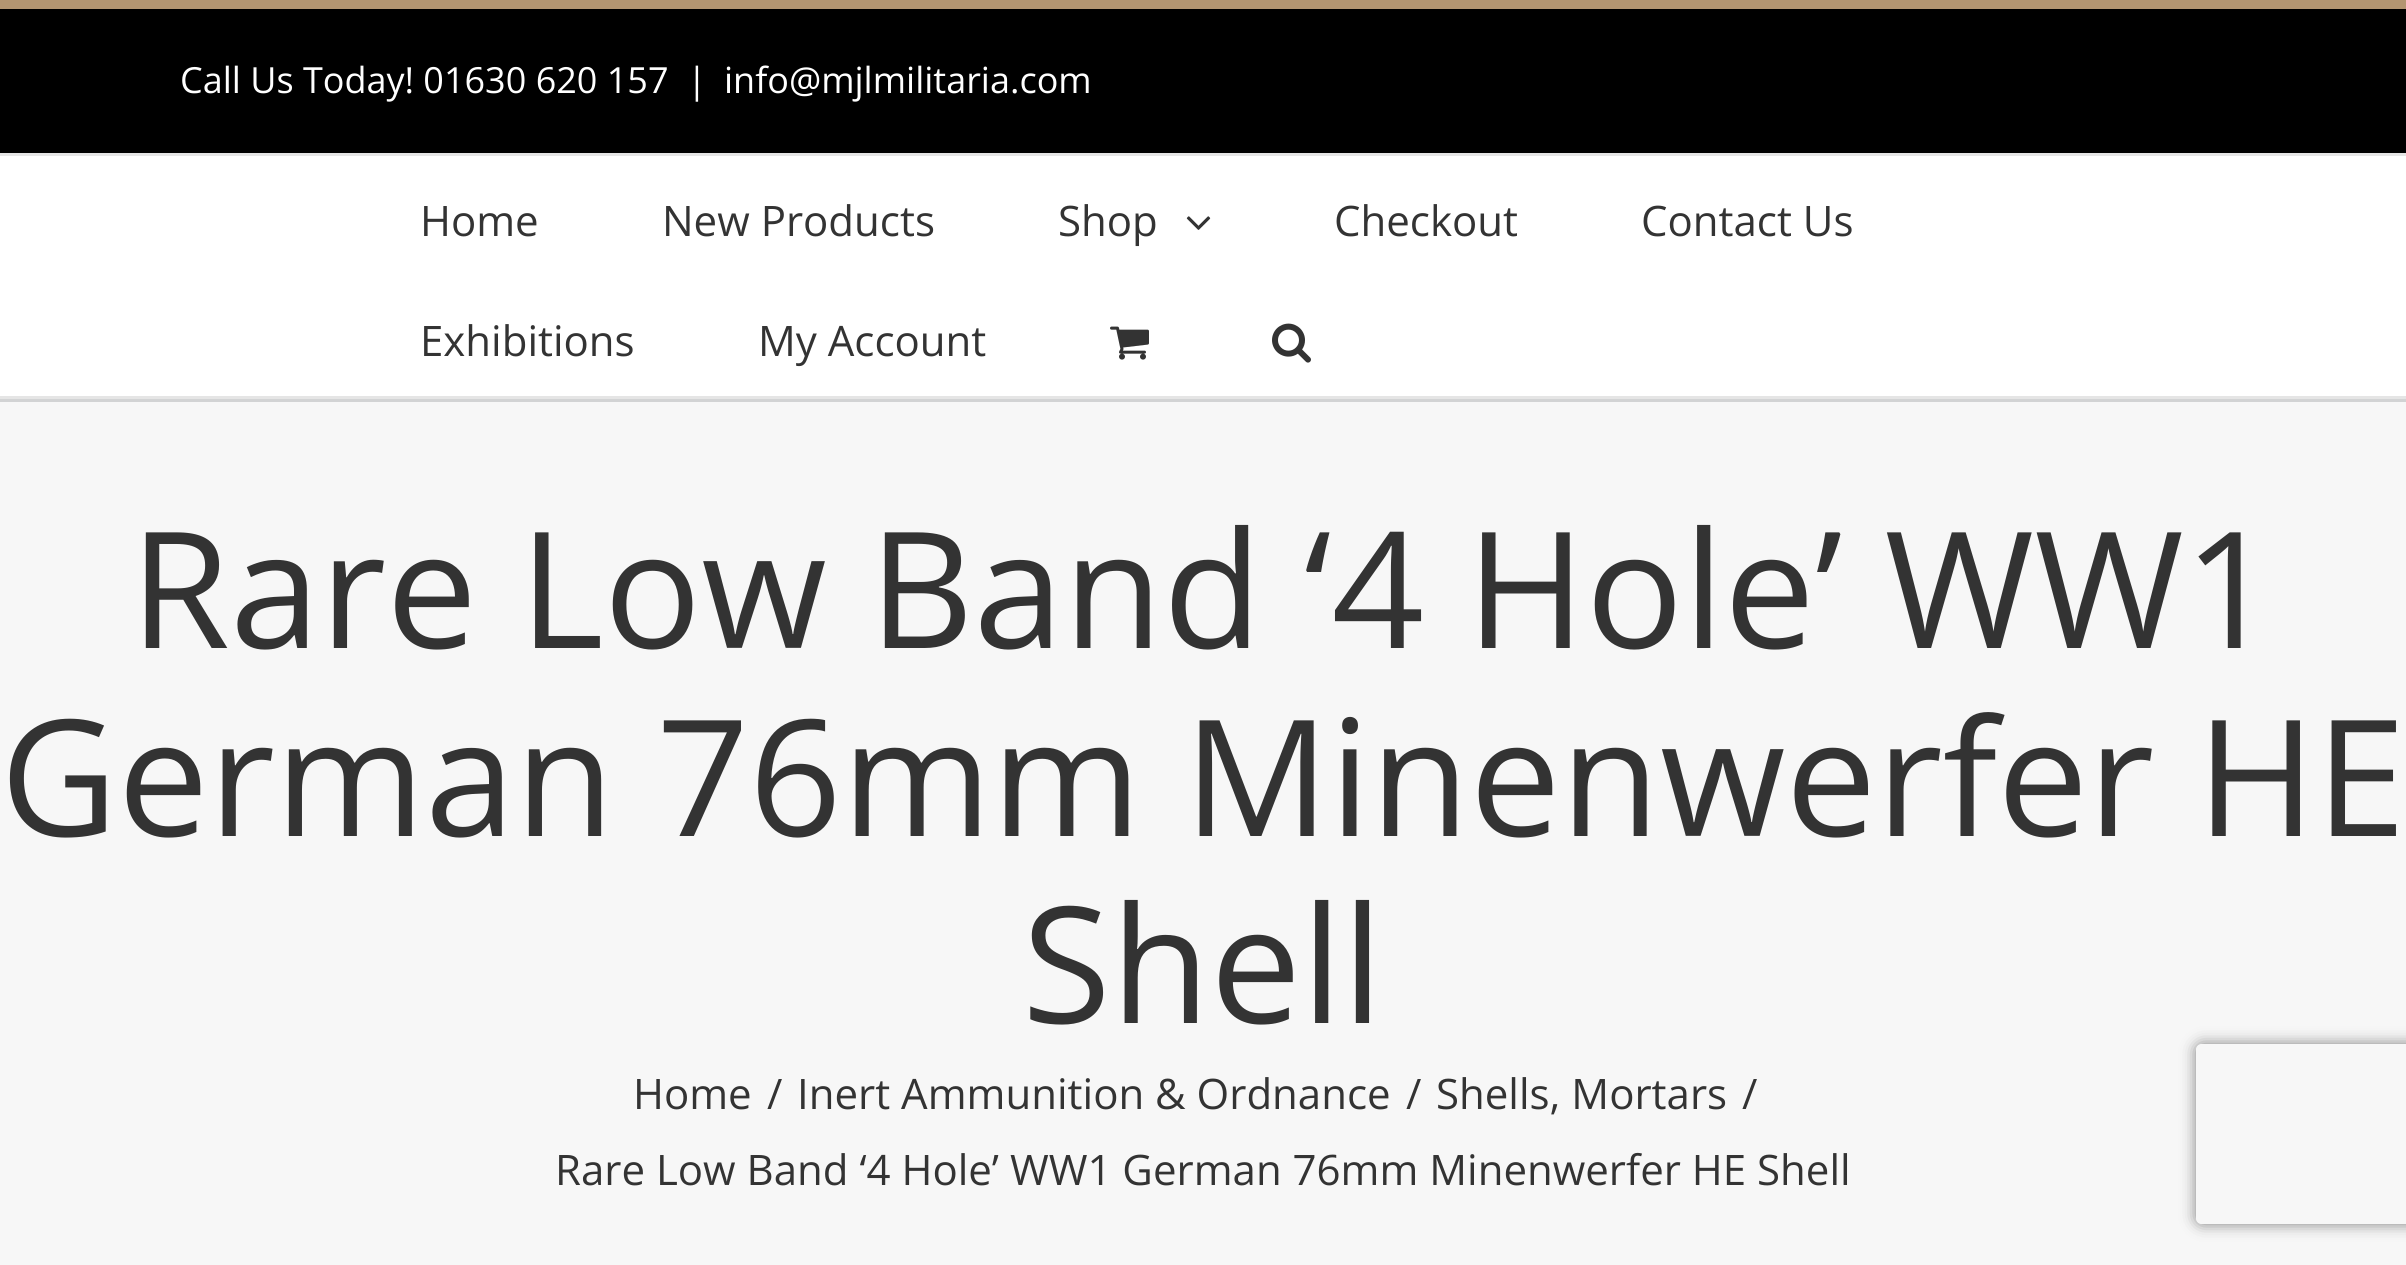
#include <cairo.h>
#include <math.h>
#include <stddef.h>


static void round_rect(cairo_t *cr, double x, double y, double w, double h, double r) {
    cairo_new_sub_path(cr);
    cairo_arc(cr, x + w - r, y + h - r, r, 0, M_PI / 2);
    cairo_arc(cr, x + r, y + h - r, r, M_PI / 2, M_PI);
    cairo_arc(cr, x + r, y + r, r, M_PI, 1.5 * M_PI);
    cairo_arc(cr, x + w - r, y + r, r, 1.5 * M_PI, 2 * M_PI);
    cairo_close_path(cr);
}

static void shadow(cairo_t *cr, double x, double y, double w, double h, double r, double blur, double alpha) {
    cairo_push_group_with_content(cr, CAIRO_CONTENT_ALPHA);
    cairo_set_operator(cr, CAIRO_OPERATOR_SOURCE);
    for (int i = 15; i >= -15 && fmin(w, h) + blur * i / 3 > 0; i -= 2) {
        double e = blur * i / 6;
        cairo_set_source_rgba(cr, 0, 0, 0, alpha * erfc((i - 1) / 8.5) / 2);
        round_rect(cr, x - e, y - e, w + 2 * e, h + 2 * e, fmax(0, fmin(r + e + blur * .6, fmin(w, h) / 2 + e)));
        cairo_fill(cr);
    }
    cairo_pattern_t *soft = cairo_pop_group(cr);
    cairo_mask(cr, soft);
    cairo_pattern_destroy(soft);
}

static void picture(cairo_t *cr, const char *path, double x, double y, double w, double h) {
    cairo_surface_t *image = cairo_image_surface_create_from_png(path);
    cairo_save(cr);
    cairo_set_source_surface(cr, image, x, y);
    cairo_rectangle(cr, x, y, w, h);
    cairo_fill(cr);
    cairo_restore(cr);
    cairo_surface_destroy(image);
}

int main(void) {
    cairo_surface_t *surface = cairo_image_surface_create(CAIRO_FORMAT_RGB24, 2406, 1265);
    cairo_t *cr = cairo_create(surface);
    cairo_font_options_t *options = cairo_font_options_create();
    cairo_font_options_set_hint_metrics(options, CAIRO_HINT_METRICS_OFF);
    cairo_font_options_set_hint_style(options, CAIRO_HINT_STYLE_NONE);
    cairo_set_font_options(cr, options);
    cairo_set_miter_limit(cr, 4);
    cairo_set_source_rgb(cr, 1, 1, 1);
    cairo_paint(cr);
    cairo_set_source_rgb(cr, 0, 0, 0);
    cairo_rectangle(cr, 0, 9, 2406, 144);
    cairo_fill(cr);
    cairo_set_source_rgb(cr, 0.702, 0.584, 0.443);
    cairo_rectangle(cr, 0, 0, 2406, 9);
    cairo_fill(cr);
    cairo_set_source_rgb(cr, 0.898, 0.898, 0.898);
    cairo_rectangle(cr, 0, 153, 2406, 3);
    cairo_fill(cr);
    cairo_select_font_face(cr, "Open Sans", CAIRO_FONT_SLANT_NORMAL, CAIRO_FONT_WEIGHT_NORMAL);
    cairo_set_font_size(cr, 36);
    cairo_set_source_rgb(cr, 1, 1, 1);
    cairo_move_to(cr, 180, 93);
    cairo_show_text(cr, "Call Us Today! 01630 620 157");
    cairo_move_to(cr, 687, 93);
    cairo_show_text(cr, "|");
    cairo_move_to(cr, 724, 93);
    cairo_show_text(cr, "info@mjlmilitaria.com");
    cairo_set_source_rgb(cr, 0.898, 0.898, 0.898);
    cairo_rectangle(cr, 0, 396, 2406, 3);
    cairo_fill(cr);
    cairo_set_font_size(cr, 42);
    cairo_set_source_rgb(cr, 0.2, 0.2, 0.2);
    cairo_move_to(cr, 420, 236);
    cairo_show_text(cr, "Home");
    cairo_move_to(cr, 662, 236);
    cairo_show_text(cr, "New Products");
    cairo_move_to(cr, 1058, 236);
    cairo_show_text(cr, "Shop");
    picture(cr, "img1.png", 1186, 216, 25, 14);
    cairo_move_to(cr, 1334, 236);
    cairo_show_text(cr, "Checkout");
    cairo_move_to(cr, 1641, 236);
    cairo_show_text(cr, "Contact Us");
    cairo_move_to(cr, 420, 356);
    cairo_show_text(cr, "Exhibitions");
    cairo_move_to(cr, 758, 356);
    cairo_show_text(cr, "My Account");
    picture(cr, "img2.png", 1110, 326, 39, 34);
    picture(cr, "img3.png", 1272, 323, 39, 40);
    cairo_set_source_rgb(cr, 0.965, 0.965, 0.965);
    cairo_rectangle(cr, 0, 402, 2406, 863);
    cairo_fill(cr);
    cairo_set_source_rgb(cr, 0.824, 0.827, 0.831);
    cairo_rectangle(cr, 0, 399, 2406, 3);
    cairo_fill(cr);
    cairo_set_font_size(cr, 162);
    cairo_set_source_rgb(cr, 0.2, 0.2, 0.2);
    cairo_move_to(cr, 130, 648);
    cairo_show_text(cr, "Rare Low Band ‘4 Hole’ WW1");
    cairo_move_to(cr, 0, 836);
    cairo_show_text(cr, "German 76mm Minenwerfer HE");
    cairo_move_to(cr, 1022, 1023);
    cairo_show_text(cr, "Shell");
    cairo_set_font_size(cr, 42);
    cairo_move_to(cr, 633, 1109);
    cairo_show_text(cr, "Home");
    cairo_move_to(cr, 767, 1109);
    cairo_show_text(cr, "/");
    cairo_move_to(cr, 797, 1109);
    cairo_show_text(cr, "Inert Ammunition & Ordnance");
    cairo_move_to(cr, 1406, 1109);
    cairo_show_text(cr, "/");
    cairo_move_to(cr, 1436, 1109);
    cairo_show_text(cr, "Shells, Mortars");
    cairo_move_to(cr, 1742, 1109);
    cairo_show_text(cr, "/");
    cairo_move_to(cr, 555, 1185);
    cairo_show_text(cr, "Rare Low Band ‘4 Hole’ WW1 German 76mm Minenwerfer HE Shell");
    cairo_save(cr);
    cairo_set_fill_rule(cr, CAIRO_FILL_RULE_EVEN_ODD);
    cairo_new_path(cr);
    cairo_move_to(cr, 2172, 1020);
    cairo_line_to(cr, 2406, 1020);
    cairo_line_to(cr, 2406, 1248);
    cairo_line_to(cr, 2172, 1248);
    cairo_close_path(cr);
    cairo_move_to(cr, 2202, 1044);
    cairo_line_to(cr, 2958, 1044);
    cairo_curve_to(cr, 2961.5, 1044, 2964, 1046.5, 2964, 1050);
    cairo_line_to(cr, 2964, 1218);
    cairo_curve_to(cr, 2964, 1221.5, 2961.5, 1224, 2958, 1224);
    cairo_line_to(cr, 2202, 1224);
    cairo_curve_to(cr, 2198.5, 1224, 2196, 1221.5, 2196, 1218);
    cairo_line_to(cr, 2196, 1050);
    cairo_curve_to(cr, 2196, 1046.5, 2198.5, 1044, 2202, 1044);
    cairo_close_path(cr);
    cairo_clip(cr);
    cairo_set_source_rgb(cr, 0.502, 0.502, 0.502);
    shadow(cr, 2196, 1044, 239, 180, 6, 7.5, 1);
    cairo_restore(cr);
    cairo_surface_write_to_png(surface, "page.png");
    cairo_font_options_destroy(options);
    cairo_destroy(cr);
    cairo_surface_destroy(surface);
    return 0;
}
